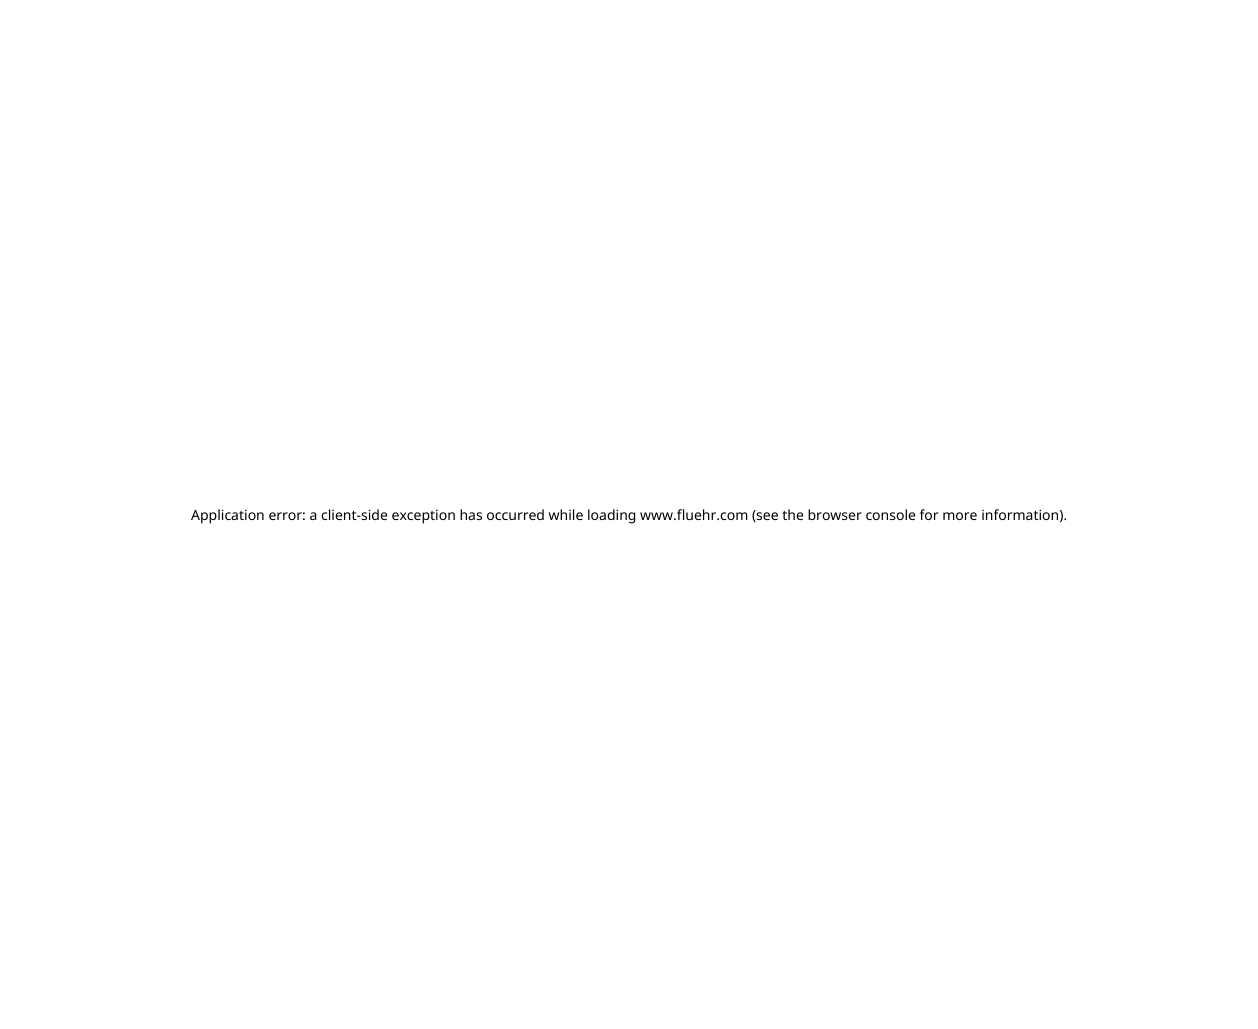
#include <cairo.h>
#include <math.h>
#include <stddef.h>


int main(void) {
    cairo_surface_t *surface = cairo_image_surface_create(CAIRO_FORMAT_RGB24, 1258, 1029);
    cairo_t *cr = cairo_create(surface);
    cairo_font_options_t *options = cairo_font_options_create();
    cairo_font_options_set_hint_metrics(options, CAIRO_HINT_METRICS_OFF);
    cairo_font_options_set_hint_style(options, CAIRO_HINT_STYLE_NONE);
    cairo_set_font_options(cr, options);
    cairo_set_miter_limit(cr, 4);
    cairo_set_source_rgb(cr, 1, 1, 1);
    cairo_paint(cr);
    cairo_select_font_face(cr, "Noto Sans", CAIRO_FONT_SLANT_NORMAL, CAIRO_FONT_WEIGHT_NORMAL);
    cairo_set_font_size(cr, 14);
    cairo_set_source_rgb(cr, 0, 0, 0);
    cairo_move_to(cr, 191, 520);
    cairo_show_text(cr, "Application error: a client-side exception has occurred while loading www.fluehr.com (see the browser console for more information).");
    cairo_surface_write_to_png(surface, "page.png");
    cairo_font_options_destroy(options);
    cairo_destroy(cr);
    cairo_surface_destroy(surface);
    return 0;
}
